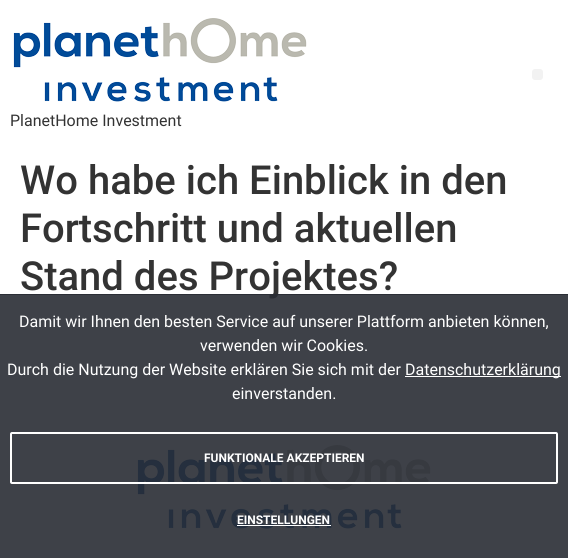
#include <cairo.h>
#include <math.h>
#include <stddef.h>


static void round_rect(cairo_t *cr, double x, double y, double w, double h, double r) {
    cairo_new_sub_path(cr);
    cairo_arc(cr, x + w - r, y + h - r, r, 0, M_PI / 2);
    cairo_arc(cr, x + r, y + h - r, r, M_PI / 2, M_PI);
    cairo_arc(cr, x + r, y + r, r, M_PI, 1.5 * M_PI);
    cairo_arc(cr, x + w - r, y + r, r, 1.5 * M_PI, 2 * M_PI);
    cairo_close_path(cr);
}

static void picture(cairo_t *cr, const char *path, double x, double y, double w, double h) {
    cairo_surface_t *image = cairo_image_surface_create_from_png(path);
    cairo_save(cr);
    cairo_set_source_surface(cr, image, x, y);
    cairo_rectangle(cr, x, y, w, h);
    cairo_fill(cr);
    cairo_restore(cr);
    cairo_surface_destroy(image);
}

int main(void) {
    cairo_surface_t *surface = cairo_image_surface_create(CAIRO_FORMAT_RGB24, 568, 558);
    cairo_t *cr = cairo_create(surface);
    cairo_font_options_t *options = cairo_font_options_create();
    cairo_font_options_set_hint_metrics(options, CAIRO_HINT_METRICS_OFF);
    cairo_font_options_set_hint_style(options, CAIRO_HINT_STYLE_NONE);
    cairo_set_font_options(cr, options);
    cairo_set_miter_limit(cr, 4);
    cairo_set_source_rgb(cr, 1, 1, 1);
    cairo_paint(cr);
    cairo_set_source_rgb(cr, 0.949, 0.949, 0.949);
    round_rect(cr, 532, 69, 11, 11, 3);
    cairo_fill(cr);
    picture(cr, "img1.png", 13, 18, 294, 84);
    cairo_select_font_face(cr, "Roboto", CAIRO_FONT_SLANT_NORMAL, CAIRO_FONT_WEIGHT_NORMAL);
    cairo_set_font_size(cr, 16);
    cairo_set_source_rgb(cr, 0.2, 0.2, 0.2);
    cairo_move_to(cr, 10, 126);
    cairo_show_text(cr, "PlanetHome Investment");
    cairo_select_font_face(cr, "Roboto Medium", CAIRO_FONT_SLANT_NORMAL, CAIRO_FONT_WEIGHT_NORMAL);
    cairo_set_font_size(cr, 40);
    cairo_move_to(cr, 20, 194);
    cairo_show_text(cr, "Wo habe ich Einblick in den");
    cairo_move_to(cr, 20, 242);
    cairo_show_text(cr, "Fortschritt und aktuellen");
    cairo_move_to(cr, 20, 290);
    cairo_show_text(cr, "Stand des Projektes?");
    picture(cr, "img1.png", 137, 445, 294, 84);
    cairo_set_source_rgba(cr, 0.161, 0.176, 0.208, 0.9);
    cairo_rectangle(cr, 0, 294, 568, 264);
    cairo_fill(cr);
    cairo_rectangle(cr, 0, 294, 568, 1);
    cairo_fill(cr);
    cairo_select_font_face(cr, "Roboto", CAIRO_FONT_SLANT_NORMAL, CAIRO_FONT_WEIGHT_NORMAL);
    cairo_set_font_size(cr, 16);
    cairo_set_source_rgb(cr, 1, 1, 1);
    cairo_move_to(cr, 19, 327);
    cairo_show_text(cr, "Damit wir Ihnen den besten Service auf unserer Plattform anbieten können,");
    cairo_move_to(cr, 200, 351);
    cairo_show_text(cr, "verwenden wir Cookies.");
    cairo_move_to(cr, 7, 375);
    cairo_show_text(cr, "Durch die Nutzung der Website erklären Sie sich mit der");
    cairo_rectangle(cr, 405, 376, 156, 1);
    cairo_fill(cr);
    cairo_move_to(cr, 405, 375);
    cairo_show_text(cr, "Datenschutzerklärung");
    cairo_move_to(cr, 232, 399);
    cairo_show_text(cr, "einverstanden.");
    round_rect(cr, 11, 433, 546, 50, 1);
    cairo_stroke(cr);
    cairo_select_font_face(cr, "Roboto", CAIRO_FONT_SLANT_NORMAL, CAIRO_FONT_WEIGHT_BOLD);
    cairo_set_font_size(cr, 12);
    cairo_move_to(cr, 204, 462);
    cairo_show_text(cr, "FUNKTIONALE AKZEPTIEREN");
    cairo_move_to(cr, 237, 524);
    cairo_show_text(cr, "EINSTELLUNGEN");
    cairo_rectangle(cr, 237, 525, 94, 1);
    cairo_fill(cr);
    cairo_surface_write_to_png(surface, "page.png");
    cairo_font_options_destroy(options);
    cairo_destroy(cr);
    cairo_surface_destroy(surface);
    return 0;
}
